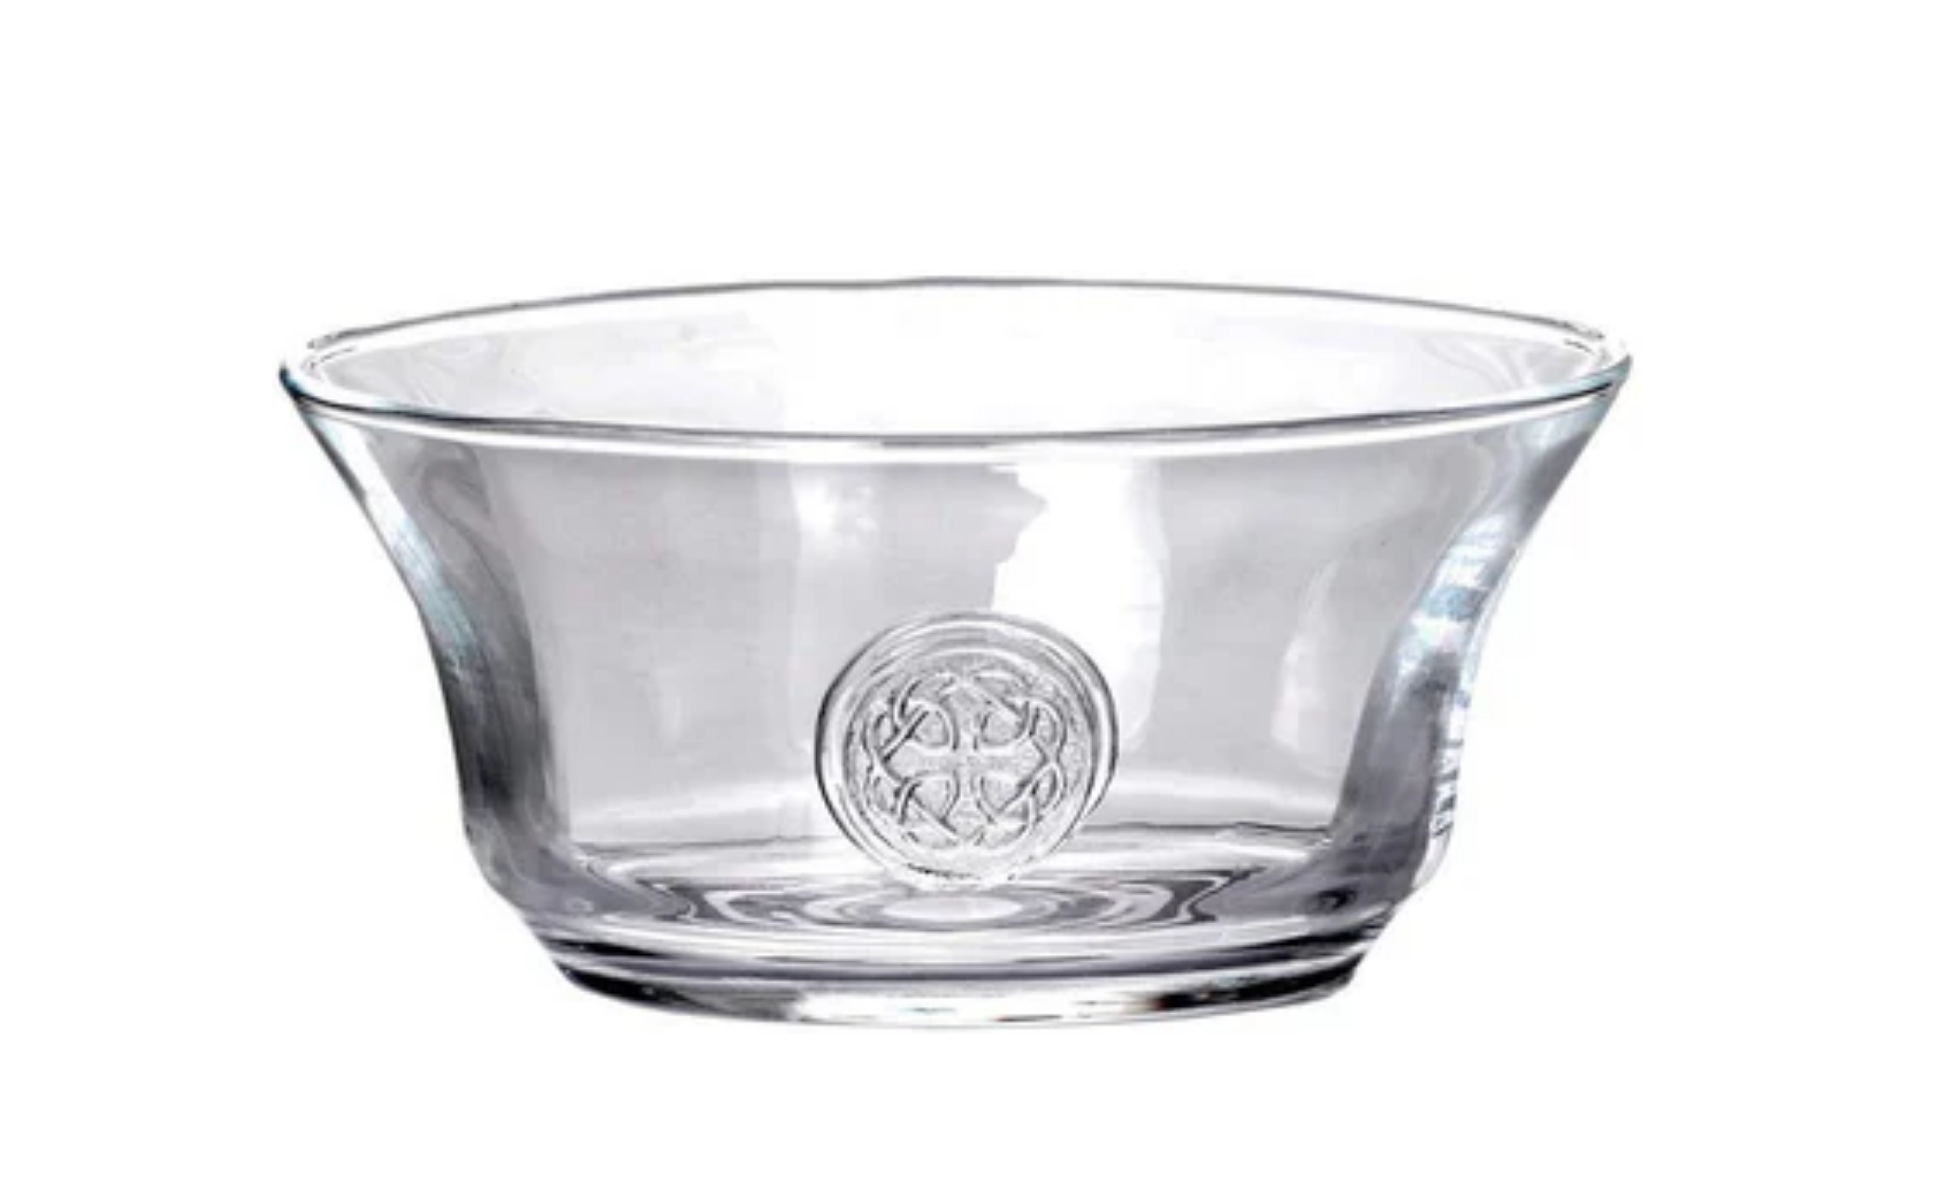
#include <cairo.h>
#include <math.h>
#include <stddef.h>


static void picture(cairo_t *cr, const char *path, double x, double y, double w, double h) {
    cairo_surface_t *image = cairo_image_surface_create_from_png(path);
    cairo_save(cr);
    cairo_set_source_surface(cr, image, x, y);
    cairo_rectangle(cr, x, y, w, h);
    cairo_fill(cr);
    cairo_restore(cr);
    cairo_surface_destroy(image);
}

int main(void) {
    cairo_surface_t *surface = cairo_image_surface_create(CAIRO_FORMAT_RGB24, 1947, 1203);
    cairo_t *cr = cairo_create(surface);
    cairo_font_options_t *options = cairo_font_options_create();
    cairo_font_options_set_hint_metrics(options, CAIRO_HINT_METRICS_OFF);
    cairo_font_options_set_hint_style(options, CAIRO_HINT_STYLE_NONE);
    cairo_set_font_options(cr, options);
    cairo_set_miter_limit(cr, 4);
    cairo_set_source_rgb(cr, 1, 1, 1);
    cairo_paint(cr);
    picture(cr, "img1.png", 272, 270, 1371, 764);
    cairo_surface_write_to_png(surface, "page.png");
    cairo_font_options_destroy(options);
    cairo_destroy(cr);
    cairo_surface_destroy(surface);
    return 0;
}
